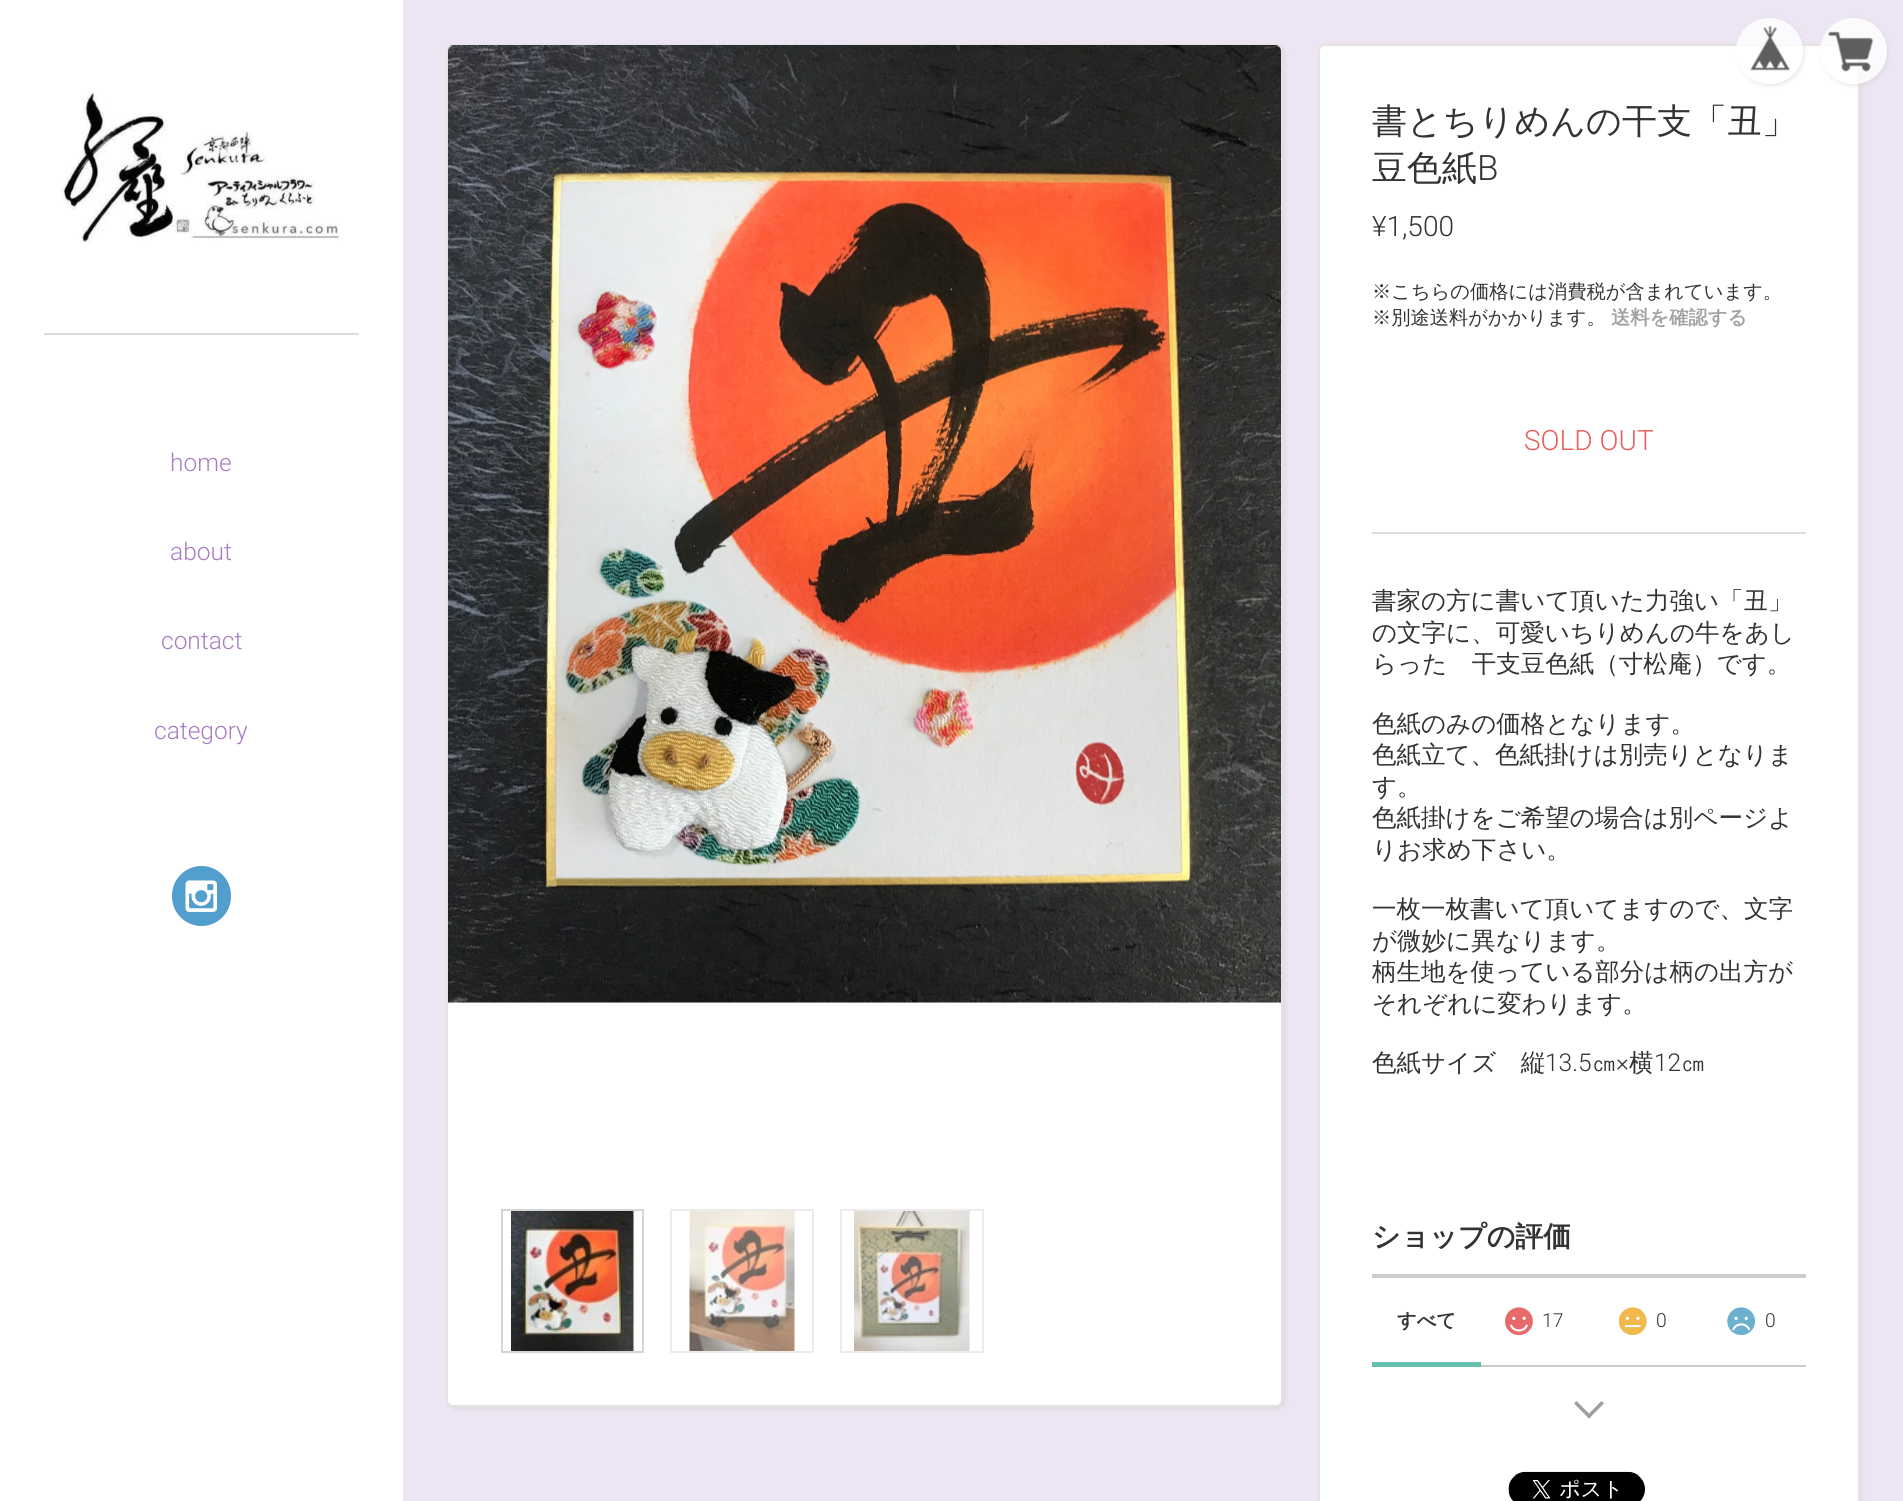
#include <cairo.h>
#include <math.h>
#include <stddef.h>


static void round_rect(cairo_t *cr, double x, double y, double w, double h, double r) {
    cairo_new_sub_path(cr);
    cairo_arc(cr, x + w - r, y + h - r, r, 0, M_PI / 2);
    cairo_arc(cr, x + r, y + h - r, r, M_PI / 2, M_PI);
    cairo_arc(cr, x + r, y + r, r, M_PI, 1.5 * M_PI);
    cairo_arc(cr, x + w - r, y + r, r, 1.5 * M_PI, 2 * M_PI);
    cairo_close_path(cr);
}

static void shadow(cairo_t *cr, double x, double y, double w, double h, double r, double blur, double alpha) {
    cairo_push_group_with_content(cr, CAIRO_CONTENT_ALPHA);
    cairo_set_operator(cr, CAIRO_OPERATOR_SOURCE);
    for (int i = 15; i >= -15 && fmin(w, h) + blur * i / 3 > 0; i -= 2) {
        double e = blur * i / 6;
        cairo_set_source_rgba(cr, 0, 0, 0, alpha * erfc((i - 1) / 8.5) / 2);
        round_rect(cr, x - e, y - e, w + 2 * e, h + 2 * e, fmax(0, fmin(r + e + blur * .6, fmin(w, h) / 2 + e)));
        cairo_fill(cr);
    }
    cairo_pattern_t *soft = cairo_pop_group(cr);
    cairo_mask(cr, soft);
    cairo_pattern_destroy(soft);
}

static void picture(cairo_t *cr, const char *path, double x, double y, double w, double h) {
    cairo_surface_t *image = cairo_image_surface_create_from_png(path);
    cairo_save(cr);
    cairo_set_source_surface(cr, image, x, y);
    cairo_rectangle(cr, x, y, w, h);
    cairo_fill(cr);
    cairo_restore(cr);
    cairo_surface_destroy(image);
}

int main(void) {
    cairo_surface_t *surface = cairo_image_surface_create(CAIRO_FORMAT_RGB24, 1903, 1501);
    cairo_t *cr = cairo_create(surface);
    cairo_font_options_t *options = cairo_font_options_create();
    cairo_font_options_set_hint_metrics(options, CAIRO_HINT_METRICS_OFF);
    cairo_font_options_set_hint_style(options, CAIRO_HINT_STYLE_NONE);
    cairo_set_font_options(cr, options);
    cairo_set_miter_limit(cr, 4);
    cairo_set_source_rgb(cr, 0.929, 0.898, 0.953);
    cairo_paint(cr);
    cairo_set_source_rgb(cr, 0.808, 0.808, 0.808);
    shadow(cr, 1320, 46, 542, 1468, 7, 2, 0.5);
    cairo_set_source_rgb(cr, 1, 1, 1);
    round_rect(cr, 1319, 45, 540, 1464, 6);
    cairo_fill_preserve(cr);
    cairo_set_source_rgb(cr, 0.89, 0.89, 0.89);
    cairo_stroke(cr);
    cairo_save(cr);
    cairo_set_fill_rule(cr, CAIRO_FILL_RULE_EVEN_ODD);
    cairo_new_path(cr);
    cairo_move_to(cr, 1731, 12);
    cairo_line_to(cr, 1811, 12);
    cairo_line_to(cr, 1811, 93);
    cairo_line_to(cr, 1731, 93);
    cairo_close_path(cr);
    cairo_move_to(cr, 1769, 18);
    cairo_line_to(cr, 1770, 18);
    cairo_curve_to(cr, 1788, 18, 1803, 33, 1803, 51);
    cairo_curve_to(cr, 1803, 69, 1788, 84, 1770, 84);
    cairo_line_to(cr, 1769, 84);
    cairo_curve_to(cr, 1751, 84, 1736, 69, 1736, 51);
    cairo_curve_to(cr, 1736, 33, 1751, 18, 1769, 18);
    cairo_close_path(cr);
    cairo_clip(cr);
    cairo_set_source_rgb(cr, 0.808, 0.808, 0.808);
    shadow(cr, 1738, 19, 66, 67, 33, 2, 0.5);
    cairo_restore(cr);
    cairo_set_source_rgba(cr, 1, 1, 1, 0.8);
    round_rect(cr, 1736, 18, 67, 66, 33);
    cairo_fill(cr);
    picture(cr, "img1.png", 1750, 26, 41, 45);
    cairo_save(cr);
    cairo_set_fill_rule(cr, CAIRO_FILL_RULE_EVEN_ODD);
    cairo_new_path(cr);
    cairo_move_to(cr, 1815, 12);
    cairo_line_to(cr, 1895, 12);
    cairo_line_to(cr, 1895, 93);
    cairo_line_to(cr, 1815, 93);
    cairo_close_path(cr);
    cairo_move_to(cr, 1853, 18);
    cairo_line_to(cr, 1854, 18);
    cairo_curve_to(cr, 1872, 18, 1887, 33, 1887, 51);
    cairo_curve_to(cr, 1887, 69, 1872, 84, 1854, 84);
    cairo_line_to(cr, 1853, 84);
    cairo_curve_to(cr, 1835, 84, 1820, 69, 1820, 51);
    cairo_curve_to(cr, 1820, 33, 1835, 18, 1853, 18);
    cairo_close_path(cr);
    cairo_clip(cr);
    cairo_set_source_rgb(cr, 0.808, 0.808, 0.808);
    shadow(cr, 1822, 19, 66, 67, 33, 2, 0.5);
    cairo_restore(cr);
    round_rect(cr, 1820, 18, 67, 66, 33);
    cairo_fill(cr);
    picture(cr, "img2.png", 1828, 31, 45, 41);
    cairo_set_source_rgb(cr, 1, 1, 1);
    cairo_rectangle(cr, 0, 0, 403, 1501);
    cairo_fill(cr);
    cairo_set_source_rgb(cr, 0.867, 0.867, 0.867);
    cairo_rectangle(cr, 44, 333, 315, 2);
    cairo_fill(cr);
    picture(cr, "img3.png", 60, 91, 281, 152);
    cairo_select_font_face(cr, "Roboto Light", CAIRO_FONT_SLANT_NORMAL, CAIRO_FONT_WEIGHT_NORMAL);
    cairo_set_font_size(cr, 24.5);
    cairo_set_source_rgb(cr, 0.655, 0.49, 0.761);
    cairo_move_to(cr, 170, 471);
    cairo_show_text(cr, "home");
    cairo_move_to(cr, 170, 560);
    cairo_show_text(cr, "about");
    cairo_move_to(cr, 161, 649);
    cairo_show_text(cr, "contact");
    cairo_move_to(cr, 154, 739);
    cairo_show_text(cr, "category");
    cairo_set_source_rgb(cr, 0.322, 0.62, 0.8);
    round_rect(cr, 172, 866, 59, 60, 29.5);
    cairo_fill(cr);
    picture(cr, "img4.png", 185, 880, 32, 32);
    cairo_set_source_rgb(cr, 0.808, 0.808, 0.808);
    shadow(cr, 448, 46, 837, 1363, 7, 2, 0.5);
    cairo_set_source_rgb(cr, 1, 1, 1);
    round_rect(cr, 447, 45, 835, 1361, 6);
    cairo_fill_preserve(cr);
    cairo_set_source_rgb(cr, 0.89, 0.89, 0.89);
    cairo_stroke(cr);
    picture(cr, "img5.png", 448, 45, 833, 958);
    cairo_rectangle(cr, 502, 1210, 141, 142);
    cairo_set_source_rgb(cr, 0.835, 0.835, 0.835);
    cairo_stroke(cr);
    picture(cr, "img6.png", 511, 1211, 123, 140);
    cairo_rectangle(cr, 671, 1210, 142, 142);
    cairo_set_source_rgb(cr, 0.922, 0.922, 0.922);
    cairo_stroke(cr);
    picture(cr, "img7.png", 689, 1211, 106, 140);
    cairo_rectangle(cr, 841, 1210, 142, 142);
    cairo_stroke(cr);
    picture(cr, "img8.png", 854, 1211, 116, 140);
    cairo_select_font_face(cr, "WenQuanYi Zen Hei Medium", CAIRO_FONT_SLANT_NORMAL, CAIRO_FONT_WEIGHT_NORMAL);
    cairo_set_font_size(cr, 35);
    cairo_set_source_rgb(cr, 0.2, 0.2, 0.2);
    cairo_move_to(cr, 1372, 133);
    cairo_show_text(cr, "書とちりめんの干支「丑」");
    cairo_move_to(cr, 1372, 180);
    cairo_show_text(cr, "豆色紙");
    cairo_select_font_face(cr, "Roboto Light", CAIRO_FONT_SLANT_NORMAL, CAIRO_FONT_WEIGHT_NORMAL);
    cairo_move_to(cr, 1477, 180);
    cairo_show_text(cr, "B");
    cairo_set_font_size(cr, 28);
    cairo_move_to(cr, 1372, 236);
    cairo_show_text(cr, "¥1,500");
    cairo_select_font_face(cr, "WenQuanYi Zen Hei Medium", CAIRO_FONT_SLANT_NORMAL, CAIRO_FONT_WEIGHT_NORMAL);
    cairo_set_font_size(cr, 19.25);
    cairo_move_to(cr, 1372, 298);
    cairo_show_text(cr, "※こちらの価格には消費税が含まれています。");
    cairo_move_to(cr, 1372, 324);
    cairo_show_text(cr, "※別途送料がかかります。");
    cairo_select_font_face(cr, "WenQuanYi Zen Hei", CAIRO_FONT_SLANT_NORMAL, CAIRO_FONT_WEIGHT_BOLD);
    cairo_set_source_rgb(cr, 0.635, 0.635, 0.635);
    cairo_move_to(cr, 1611, 324);
    cairo_show_text(cr, "送料を確認する");
    cairo_select_font_face(cr, "Roboto Light", CAIRO_FONT_SLANT_NORMAL, CAIRO_FONT_WEIGHT_NORMAL);
    cairo_set_font_size(cr, 28);
    cairo_set_source_rgb(cr, 0.914, 0.373, 0.357);
    cairo_move_to(cr, 1524, 450);
    cairo_show_text(cr, "SOLD OUT");
    cairo_set_source_rgb(cr, 0.867, 0.867, 0.867);
    cairo_rectangle(cr, 1372, 532, 434, 2);
    cairo_fill(cr);
    cairo_select_font_face(cr, "WenQuanYi Zen Hei Medium", CAIRO_FONT_SLANT_NORMAL, CAIRO_FONT_WEIGHT_NORMAL);
    cairo_set_font_size(cr, 24.5);
    cairo_set_source_rgb(cr, 0.2, 0.2, 0.2);
    cairo_move_to(cr, 1372, 609);
    cairo_show_text(cr, "書家の方に書いて頂いた力強い「丑」");
    cairo_move_to(cr, 1372, 641);
    cairo_show_text(cr, "の文字に、可愛いちりめんの牛をあし");
    cairo_move_to(cr, 1372, 672);
    cairo_show_text(cr, "らった　干支豆色紙（寸松庵）です。");
    cairo_move_to(cr, 1372, 732);
    cairo_show_text(cr, "色紙のみの価格となります。");
    cairo_move_to(cr, 1372, 763);
    cairo_show_text(cr, "色紙立て、色紙掛けは別売りとなりま");
    cairo_move_to(cr, 1372, 795);
    cairo_show_text(cr, "す。");
    cairo_move_to(cr, 1372, 826);
    cairo_show_text(cr, "色紙掛けをご希望の場合は別ページよ");
    cairo_move_to(cr, 1372, 858);
    cairo_show_text(cr, "りお求め下さい。");
    cairo_move_to(cr, 1372, 917);
    cairo_show_text(cr, "一枚一枚書いて頂いてますので、文字");
    cairo_move_to(cr, 1372, 949);
    cairo_show_text(cr, "が微妙に異なります。");
    cairo_move_to(cr, 1372, 980);
    cairo_show_text(cr, "柄生地を使っている部分は柄の出方が");
    cairo_move_to(cr, 1372, 1012);
    cairo_show_text(cr, "それぞれに変わります。");
    cairo_move_to(cr, 1372, 1071);
    cairo_show_text(cr, "色紙サイズ　縦");
    cairo_select_font_face(cr, "Roboto Light", CAIRO_FONT_SLANT_NORMAL, CAIRO_FONT_WEIGHT_NORMAL);
    cairo_move_to(cr, 1545, 1071);
    cairo_show_text(cr, "13.5");
    cairo_select_font_face(cr, "WenQuanYi Zen Hei Medium", CAIRO_FONT_SLANT_NORMAL, CAIRO_FONT_WEIGHT_NORMAL);
    cairo_move_to(cr, 1592, 1071);
    cairo_show_text(cr, "㎝");
    cairo_select_font_face(cr, "Roboto Light", CAIRO_FONT_SLANT_NORMAL, CAIRO_FONT_WEIGHT_NORMAL);
    cairo_move_to(cr, 1616, 1071);
    cairo_show_text(cr, "×");
    cairo_select_font_face(cr, "WenQuanYi Zen Hei Medium", CAIRO_FONT_SLANT_NORMAL, CAIRO_FONT_WEIGHT_NORMAL);
    cairo_move_to(cr, 1629, 1071);
    cairo_show_text(cr, "横");
    cairo_select_font_face(cr, "Roboto Light", CAIRO_FONT_SLANT_NORMAL, CAIRO_FONT_WEIGHT_NORMAL);
    cairo_move_to(cr, 1654, 1071);
    cairo_show_text(cr, "12");
    cairo_select_font_face(cr, "WenQuanYi Zen Hei Medium", CAIRO_FONT_SLANT_NORMAL, CAIRO_FONT_WEIGHT_NORMAL);
    cairo_move_to(cr, 1681, 1071);
    cairo_show_text(cr, "㎝");
    cairo_select_font_face(cr, "WenQuanYi Zen Hei", CAIRO_FONT_SLANT_NORMAL, CAIRO_FONT_WEIGHT_BOLD);
    cairo_set_font_size(cr, 28);
    cairo_move_to(cr, 1372, 1246);
    cairo_show_text(cr, "ショップの評価");
    cairo_set_source_rgb(cr, 0.8, 0.8, 0.8);
    cairo_rectangle(cr, 1372, 1274, 434, 4);
    cairo_fill(cr);
    cairo_rectangle(cr, 1481, 1365, 325, 2);
    cairo_fill(cr);
    cairo_set_font_size(cr, 19.25);
    cairo_set_source_rgb(cr, 0.2, 0.2, 0.2);
    cairo_move_to(cr, 1397, 1327);
    cairo_show_text(cr, "すべて");
    picture(cr, "img9.png", 1505, 1307, 28, 28);
    cairo_select_font_face(cr, "Roboto Light", CAIRO_FONT_SLANT_NORMAL, CAIRO_FONT_WEIGHT_NORMAL);
    cairo_move_to(cr, 1542, 1327);
    cairo_show_text(cr, "17");
    picture(cr, "img10.png", 1619, 1307, 28, 28);
    cairo_move_to(cr, 1656, 1327);
    cairo_show_text(cr, "0");
    picture(cr, "img11.png", 1727, 1307, 28, 28);
    cairo_move_to(cr, 1765, 1327);
    cairo_show_text(cr, "0");
    cairo_set_source_rgb(cr, 0.388, 0.757, 0.682);
    cairo_rectangle(cr, 1372, 1362, 109, 5);
    cairo_fill(cr);
    cairo_set_source_rgb(cr, 0.627, 0.627, 0.627);
    cairo_new_path(cr);
    cairo_move_to(cr, 1601.5, 1401);
    cairo_line_to(cr, 1604, 1403.5);
    cairo_line_to(cr, 1589, 1418.5);
    cairo_line_to(cr, 1586.5, 1416);
    cairo_close_path(cr);
    cairo_fill(cr);
    cairo_new_path(cr);
    cairo_move_to(cr, 1576.5, 1401);
    cairo_line_to(cr, 1591.5, 1416);
    cairo_line_to(cr, 1589, 1418.5);
    cairo_line_to(cr, 1574, 1403.5);
    cairo_close_path(cr);
    cairo_fill(cr);
    picture(cr, "img12.png", 1508, 1471, 137, 30);
    cairo_surface_write_to_png(surface, "page.png");
    cairo_font_options_destroy(options);
    cairo_destroy(cr);
    cairo_surface_destroy(surface);
    return 0;
}
